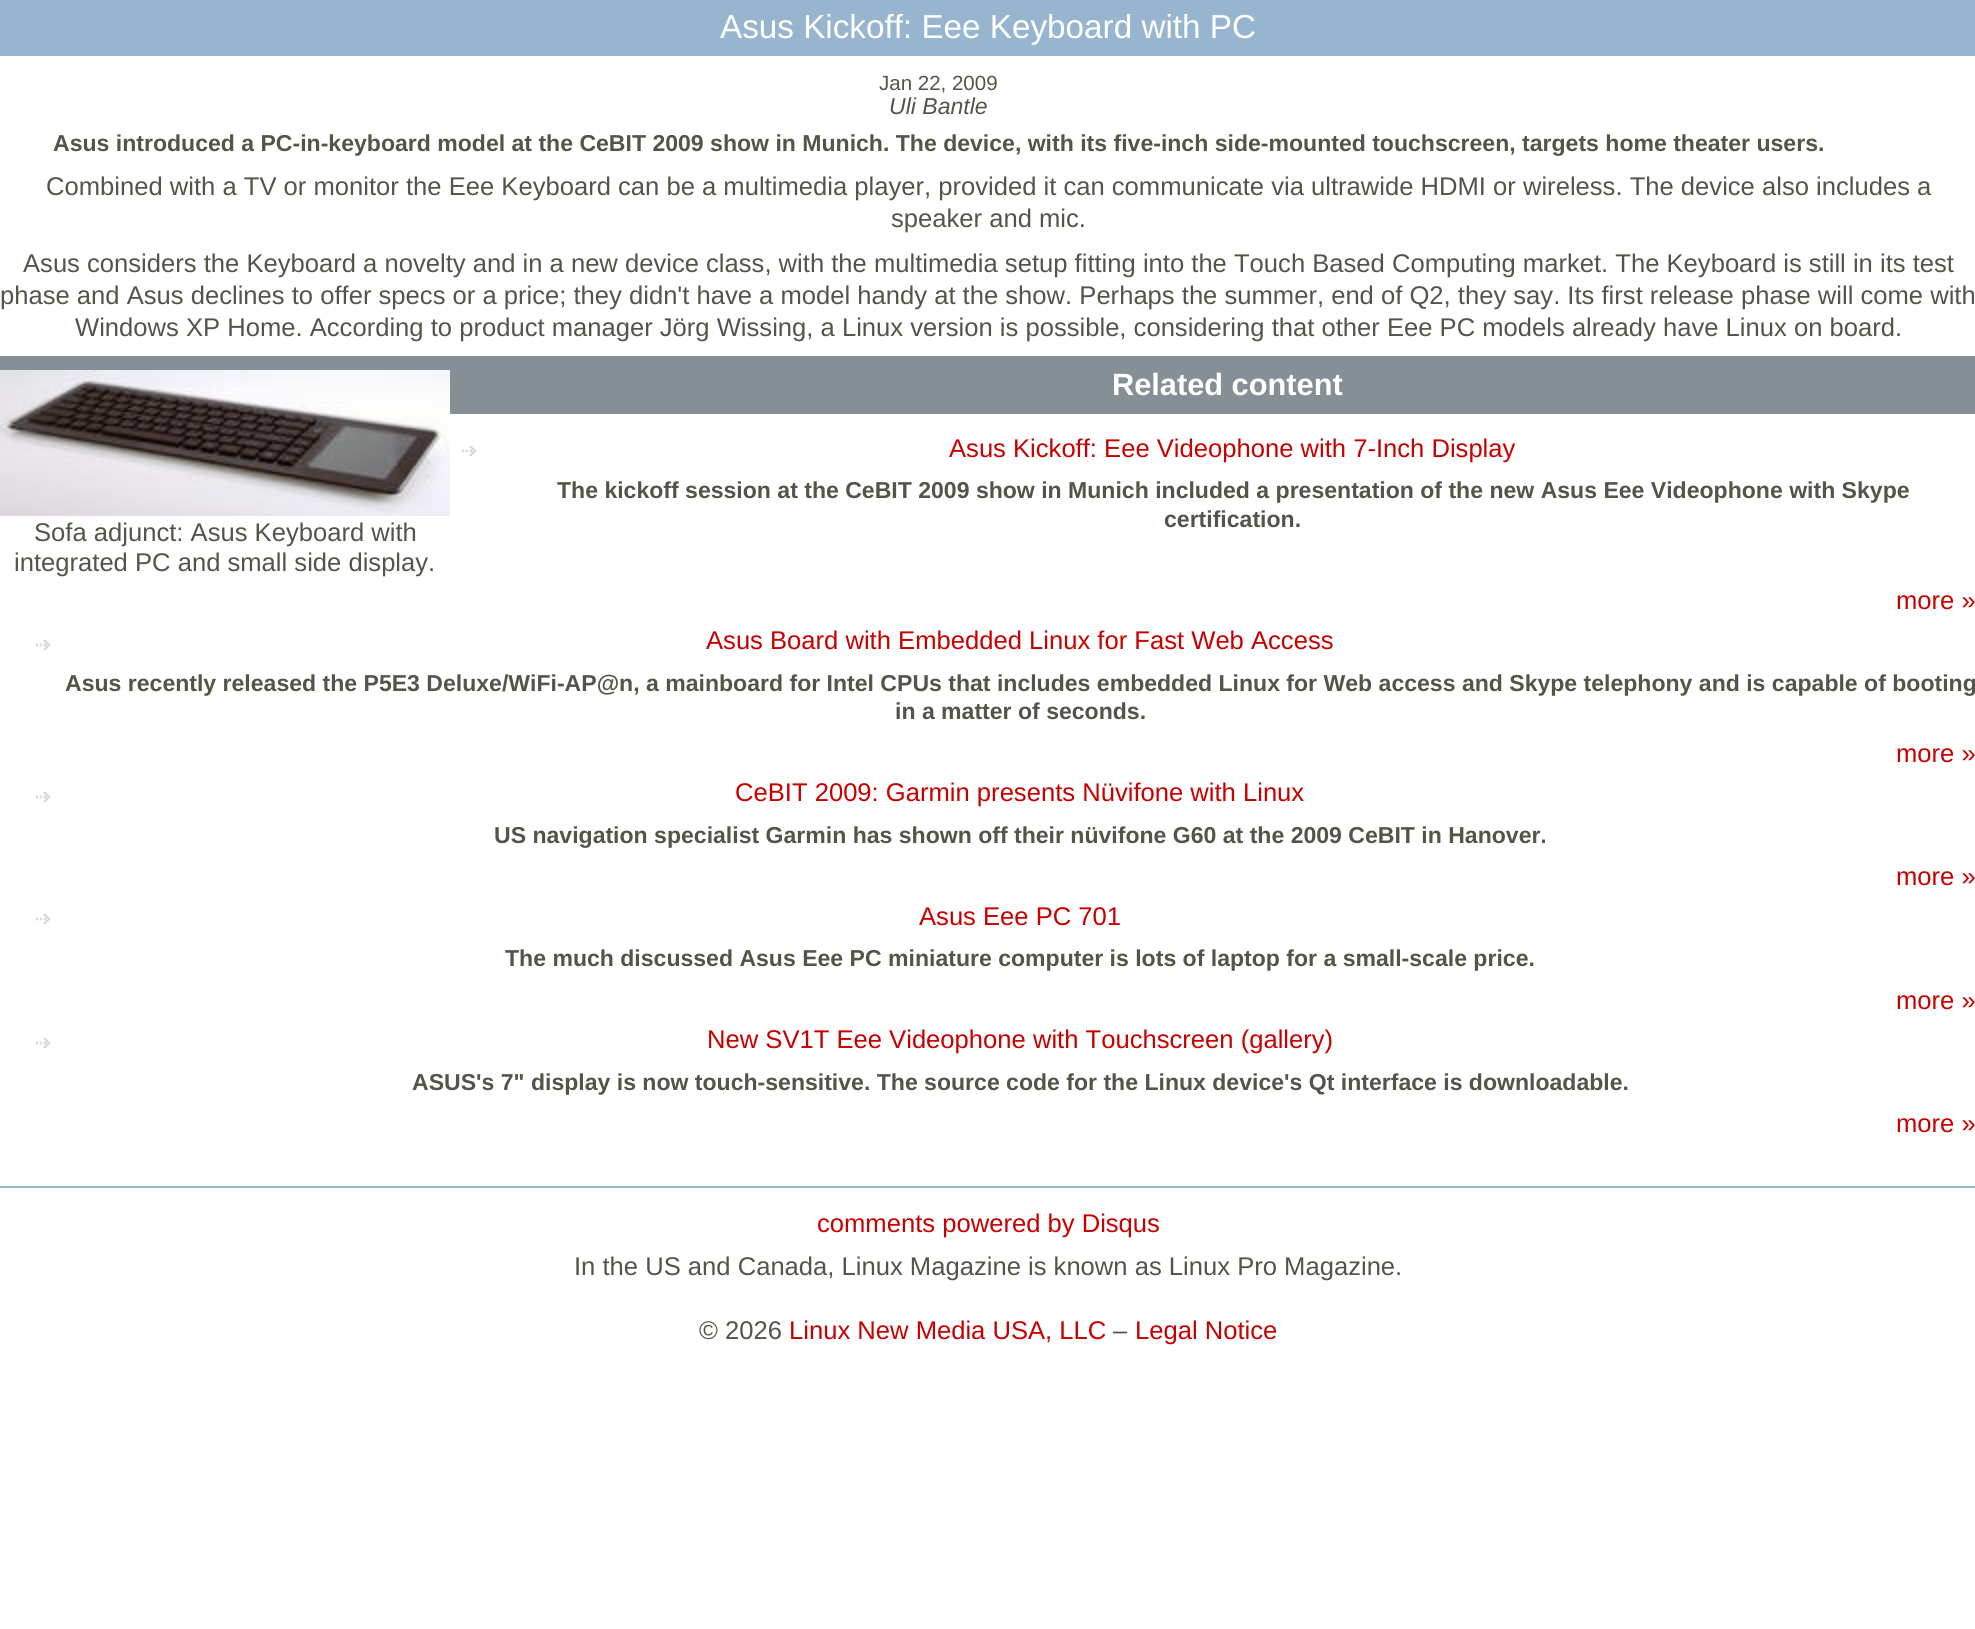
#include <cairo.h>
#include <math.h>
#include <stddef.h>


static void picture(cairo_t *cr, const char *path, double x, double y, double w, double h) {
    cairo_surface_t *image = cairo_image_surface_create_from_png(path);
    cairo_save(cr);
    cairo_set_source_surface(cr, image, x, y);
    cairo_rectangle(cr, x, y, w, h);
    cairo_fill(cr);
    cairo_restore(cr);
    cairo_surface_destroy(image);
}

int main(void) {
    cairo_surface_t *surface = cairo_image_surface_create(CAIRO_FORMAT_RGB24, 1975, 1629);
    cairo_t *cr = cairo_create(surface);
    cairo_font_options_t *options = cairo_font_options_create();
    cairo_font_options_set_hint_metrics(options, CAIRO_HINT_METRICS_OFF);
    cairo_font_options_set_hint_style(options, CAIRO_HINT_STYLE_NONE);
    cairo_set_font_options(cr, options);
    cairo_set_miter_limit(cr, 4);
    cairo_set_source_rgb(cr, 1, 1, 1);
    cairo_paint(cr);
    cairo_set_source_rgb(cr, 0.592, 0.71, 0.812);
    cairo_rectangle(cr, 0, 0, 1975, 56);
    cairo_fill(cr);
    cairo_select_font_face(cr, "Liberation Sans", CAIRO_FONT_SLANT_NORMAL, CAIRO_FONT_WEIGHT_NORMAL);
    cairo_set_font_size(cr, 33.25);
    cairo_set_source_rgb(cr, 1, 1, 1);
    cairo_move_to(cr, 720, 38);
    cairo_show_text(cr, "Asus Kickoff: Eee Keyboard with PC");
    cairo_set_font_size(cr, 20.5);
    cairo_set_source_rgb(cr, 0.325, 0.333, 0.282);
    cairo_move_to(cr, 879, 90);
    cairo_show_text(cr, "Jan 22, 2009");
    cairo_select_font_face(cr, "Liberation Sans", CAIRO_FONT_SLANT_ITALIC, CAIRO_FONT_WEIGHT_NORMAL);
    cairo_set_font_size(cr, 23.05);
    cairo_move_to(cr, 889, 114);
    cairo_show_text(cr, "Uli Bantle");
    cairo_select_font_face(cr, "Liberation Sans", CAIRO_FONT_SLANT_NORMAL, CAIRO_FONT_WEIGHT_BOLD);
    cairo_move_to(cr, 53, 151);
    cairo_show_text(cr, "Asus introduced a PC-in-keyboard model at the CeBIT 2009 show in Munich. The device, with its five-inch side-mounted touchscreen, targets home theater users.");
    cairo_select_font_face(cr, "Liberation Sans", CAIRO_FONT_SLANT_NORMAL, CAIRO_FONT_WEIGHT_NORMAL);
    cairo_set_font_size(cr, 25.6);
    cairo_move_to(cr, 46, 195);
    cairo_show_text(cr, "Combined with a TV or monitor the Eee Keyboard can be a multimedia player, provided it can communicate via ultrawide HDMI or wireless. The device also includes a");
    cairo_move_to(cr, 891, 227);
    cairo_show_text(cr, "speaker and mic.");
    cairo_move_to(cr, 23, 272);
    cairo_show_text(cr, "Asus considers the Keyboard a novelty and in a new device class, with the multimedia setup fitting into the Touch Based Computing market. The Keyboard is still in its test");
    cairo_move_to(cr, 0, 304);
    cairo_show_text(cr, "phase and Asus declines to offer specs or a price; they didn't have a model handy at the show. Perhaps the summer, end of Q2, they say. Its first release phase will come with");
    cairo_move_to(cr, 75, 336);
    cairo_show_text(cr, "Windows XP Home. According to product manager Jörg Wissing, a Linux version is possible, considering that other Eee PC models already have Linux on board.");
    cairo_set_source_rgb(cr, 0.529, 0.561, 0.588);
    cairo_rectangle(cr, 0, 356, 1975, 58);
    cairo_fill(cr);
    picture(cr, "img1.png", 0, 370, 450, 146);
    cairo_set_source_rgb(cr, 0.325, 0.333, 0.282);
    cairo_move_to(cr, 34, 541);
    cairo_show_text(cr, "Sofa adjunct: Asus Keyboard with");
    cairo_move_to(cr, 14, 571);
    cairo_show_text(cr, "integrated PC and small side display.");
    cairo_set_source_rgb(cr, 0.592, 0.71, 0.812);
    cairo_rectangle(cr, 0, 1186, 1975, 2);
    cairo_fill(cr);
    cairo_select_font_face(cr, "Liberation Sans", CAIRO_FONT_SLANT_NORMAL, CAIRO_FONT_WEIGHT_BOLD);
    cairo_set_font_size(cr, 30.75);
    cairo_set_source_rgb(cr, 1, 1, 1);
    cairo_move_to(cr, 1112, 395);
    cairo_show_text(cr, "Related content");
    picture(cr, "img2.png", 462, 446, 14, 10);
    cairo_select_font_face(cr, "Liberation Sans", CAIRO_FONT_SLANT_NORMAL, CAIRO_FONT_WEIGHT_NORMAL);
    cairo_set_font_size(cr, 25.6);
    cairo_set_source_rgb(cr, 0.78, 0, 0);
    cairo_move_to(cr, 949, 457);
    cairo_show_text(cr, "Asus Kickoff: Eee Videophone with 7-Inch Display");
    cairo_select_font_face(cr, "Liberation Sans", CAIRO_FONT_SLANT_NORMAL, CAIRO_FONT_WEIGHT_BOLD);
    cairo_set_font_size(cr, 23.05);
    cairo_set_source_rgb(cr, 0.325, 0.333, 0.282);
    cairo_move_to(cr, 557, 498);
    cairo_show_text(cr, "The kickoff session at the CeBIT 2009 show in Munich included a presentation of the new Asus Eee Videophone with Skype");
    cairo_move_to(cr, 1164, 527);
    cairo_show_text(cr, "certification.");
    cairo_select_font_face(cr, "Liberation Sans", CAIRO_FONT_SLANT_NORMAL, CAIRO_FONT_WEIGHT_NORMAL);
    cairo_set_font_size(cr, 25.6);
    cairo_set_source_rgb(cr, 0.78, 0, 0);
    cairo_move_to(cr, 1896, 609);
    cairo_show_text(cr, "more »");
    picture(cr, "img2.png", 36, 640, 14, 10);
    cairo_move_to(cr, 706, 649);
    cairo_show_text(cr, "Asus Board with Embedded Linux for Fast Web Access");
    cairo_select_font_face(cr, "Liberation Sans", CAIRO_FONT_SLANT_NORMAL, CAIRO_FONT_WEIGHT_BOLD);
    cairo_set_font_size(cr, 23.05);
    cairo_set_source_rgb(cr, 0.325, 0.333, 0.282);
    cairo_move_to(cr, 65, 691);
    cairo_show_text(cr, "Asus recently released the P5E3 Deluxe/WiFi-AP@n, a mainboard for Intel CPUs that includes embedded Linux for Web access and Skype telephony and is capable of booting");
    cairo_move_to(cr, 895, 719);
    cairo_show_text(cr, "in a matter of seconds.");
    cairo_select_font_face(cr, "Liberation Sans", CAIRO_FONT_SLANT_NORMAL, CAIRO_FONT_WEIGHT_NORMAL);
    cairo_set_font_size(cr, 25.6);
    cairo_set_source_rgb(cr, 0.78, 0, 0);
    cairo_move_to(cr, 1896, 762);
    cairo_show_text(cr, "more »");
    picture(cr, "img2.png", 36, 792, 14, 10);
    cairo_move_to(cr, 735, 801);
    cairo_show_text(cr, "CeBIT 2009: Garmin presents Nüvifone with Linux");
    cairo_select_font_face(cr, "Liberation Sans", CAIRO_FONT_SLANT_NORMAL, CAIRO_FONT_WEIGHT_BOLD);
    cairo_set_font_size(cr, 23.05);
    cairo_set_source_rgb(cr, 0.325, 0.333, 0.282);
    cairo_move_to(cr, 494, 843);
    cairo_show_text(cr, "US navigation specialist Garmin has shown off their nüvifone G60 at the 2009 CeBIT in Hanover.");
    cairo_select_font_face(cr, "Liberation Sans", CAIRO_FONT_SLANT_NORMAL, CAIRO_FONT_WEIGHT_NORMAL);
    cairo_set_font_size(cr, 25.6);
    cairo_set_source_rgb(cr, 0.78, 0, 0);
    cairo_move_to(cr, 1896, 885);
    cairo_show_text(cr, "more »");
    picture(cr, "img2.png", 36, 914, 14, 10);
    cairo_move_to(cr, 919, 925);
    cairo_show_text(cr, "Asus Eee PC 701");
    cairo_select_font_face(cr, "Liberation Sans", CAIRO_FONT_SLANT_NORMAL, CAIRO_FONT_WEIGHT_BOLD);
    cairo_set_font_size(cr, 23.05);
    cairo_set_source_rgb(cr, 0.325, 0.333, 0.282);
    cairo_move_to(cr, 505, 966);
    cairo_show_text(cr, "The much discussed Asus Eee PC miniature computer is lots of laptop for a small-scale price.");
    cairo_select_font_face(cr, "Liberation Sans", CAIRO_FONT_SLANT_NORMAL, CAIRO_FONT_WEIGHT_NORMAL);
    cairo_set_font_size(cr, 25.6);
    cairo_set_source_rgb(cr, 0.78, 0, 0);
    cairo_move_to(cr, 1896, 1009);
    cairo_show_text(cr, "more »");
    picture(cr, "img2.png", 36, 1038, 14, 10);
    cairo_move_to(cr, 707, 1048);
    cairo_show_text(cr, "New SV1T Eee Videophone with Touchscreen (gallery)");
    cairo_select_font_face(cr, "Liberation Sans", CAIRO_FONT_SLANT_NORMAL, CAIRO_FONT_WEIGHT_BOLD);
    cairo_set_font_size(cr, 23.05);
    cairo_set_source_rgb(cr, 0.325, 0.333, 0.282);
    cairo_move_to(cr, 412, 1090);
    cairo_show_text(cr, "ASUS's 7\" display is now touch-sensitive. The source code for the Linux device's Qt interface is downloadable.");
    cairo_select_font_face(cr, "Liberation Sans", CAIRO_FONT_SLANT_NORMAL, CAIRO_FONT_WEIGHT_NORMAL);
    cairo_set_font_size(cr, 25.6);
    cairo_set_source_rgb(cr, 0.78, 0, 0);
    cairo_move_to(cr, 1896, 1132);
    cairo_show_text(cr, "more »");
    cairo_move_to(cr, 817, 1232);
    cairo_show_text(cr, "comments powered by Disqus");
    cairo_set_source_rgb(cr, 0.325, 0.333, 0.282);
    cairo_move_to(cr, 574, 1275);
    cairo_show_text(cr, "In the US and Canada, Linux Magazine is known as Linux Pro Magazine.");
    cairo_move_to(cr, 699, 1339);
    cairo_show_text(cr, "© 2026");
    cairo_set_source_rgb(cr, 0.78, 0, 0);
    cairo_move_to(cr, 789, 1339);
    cairo_show_text(cr, "Linux New Media USA, LLC");
    cairo_set_source_rgb(cr, 0.325, 0.333, 0.282);
    cairo_move_to(cr, 1113, 1339);
    cairo_show_text(cr, "–");
    cairo_set_source_rgb(cr, 0.78, 0, 0);
    cairo_move_to(cr, 1135, 1339);
    cairo_show_text(cr, "Legal Notice");
    cairo_surface_write_to_png(surface, "page.png");
    cairo_font_options_destroy(options);
    cairo_destroy(cr);
    cairo_surface_destroy(surface);
    return 0;
}
